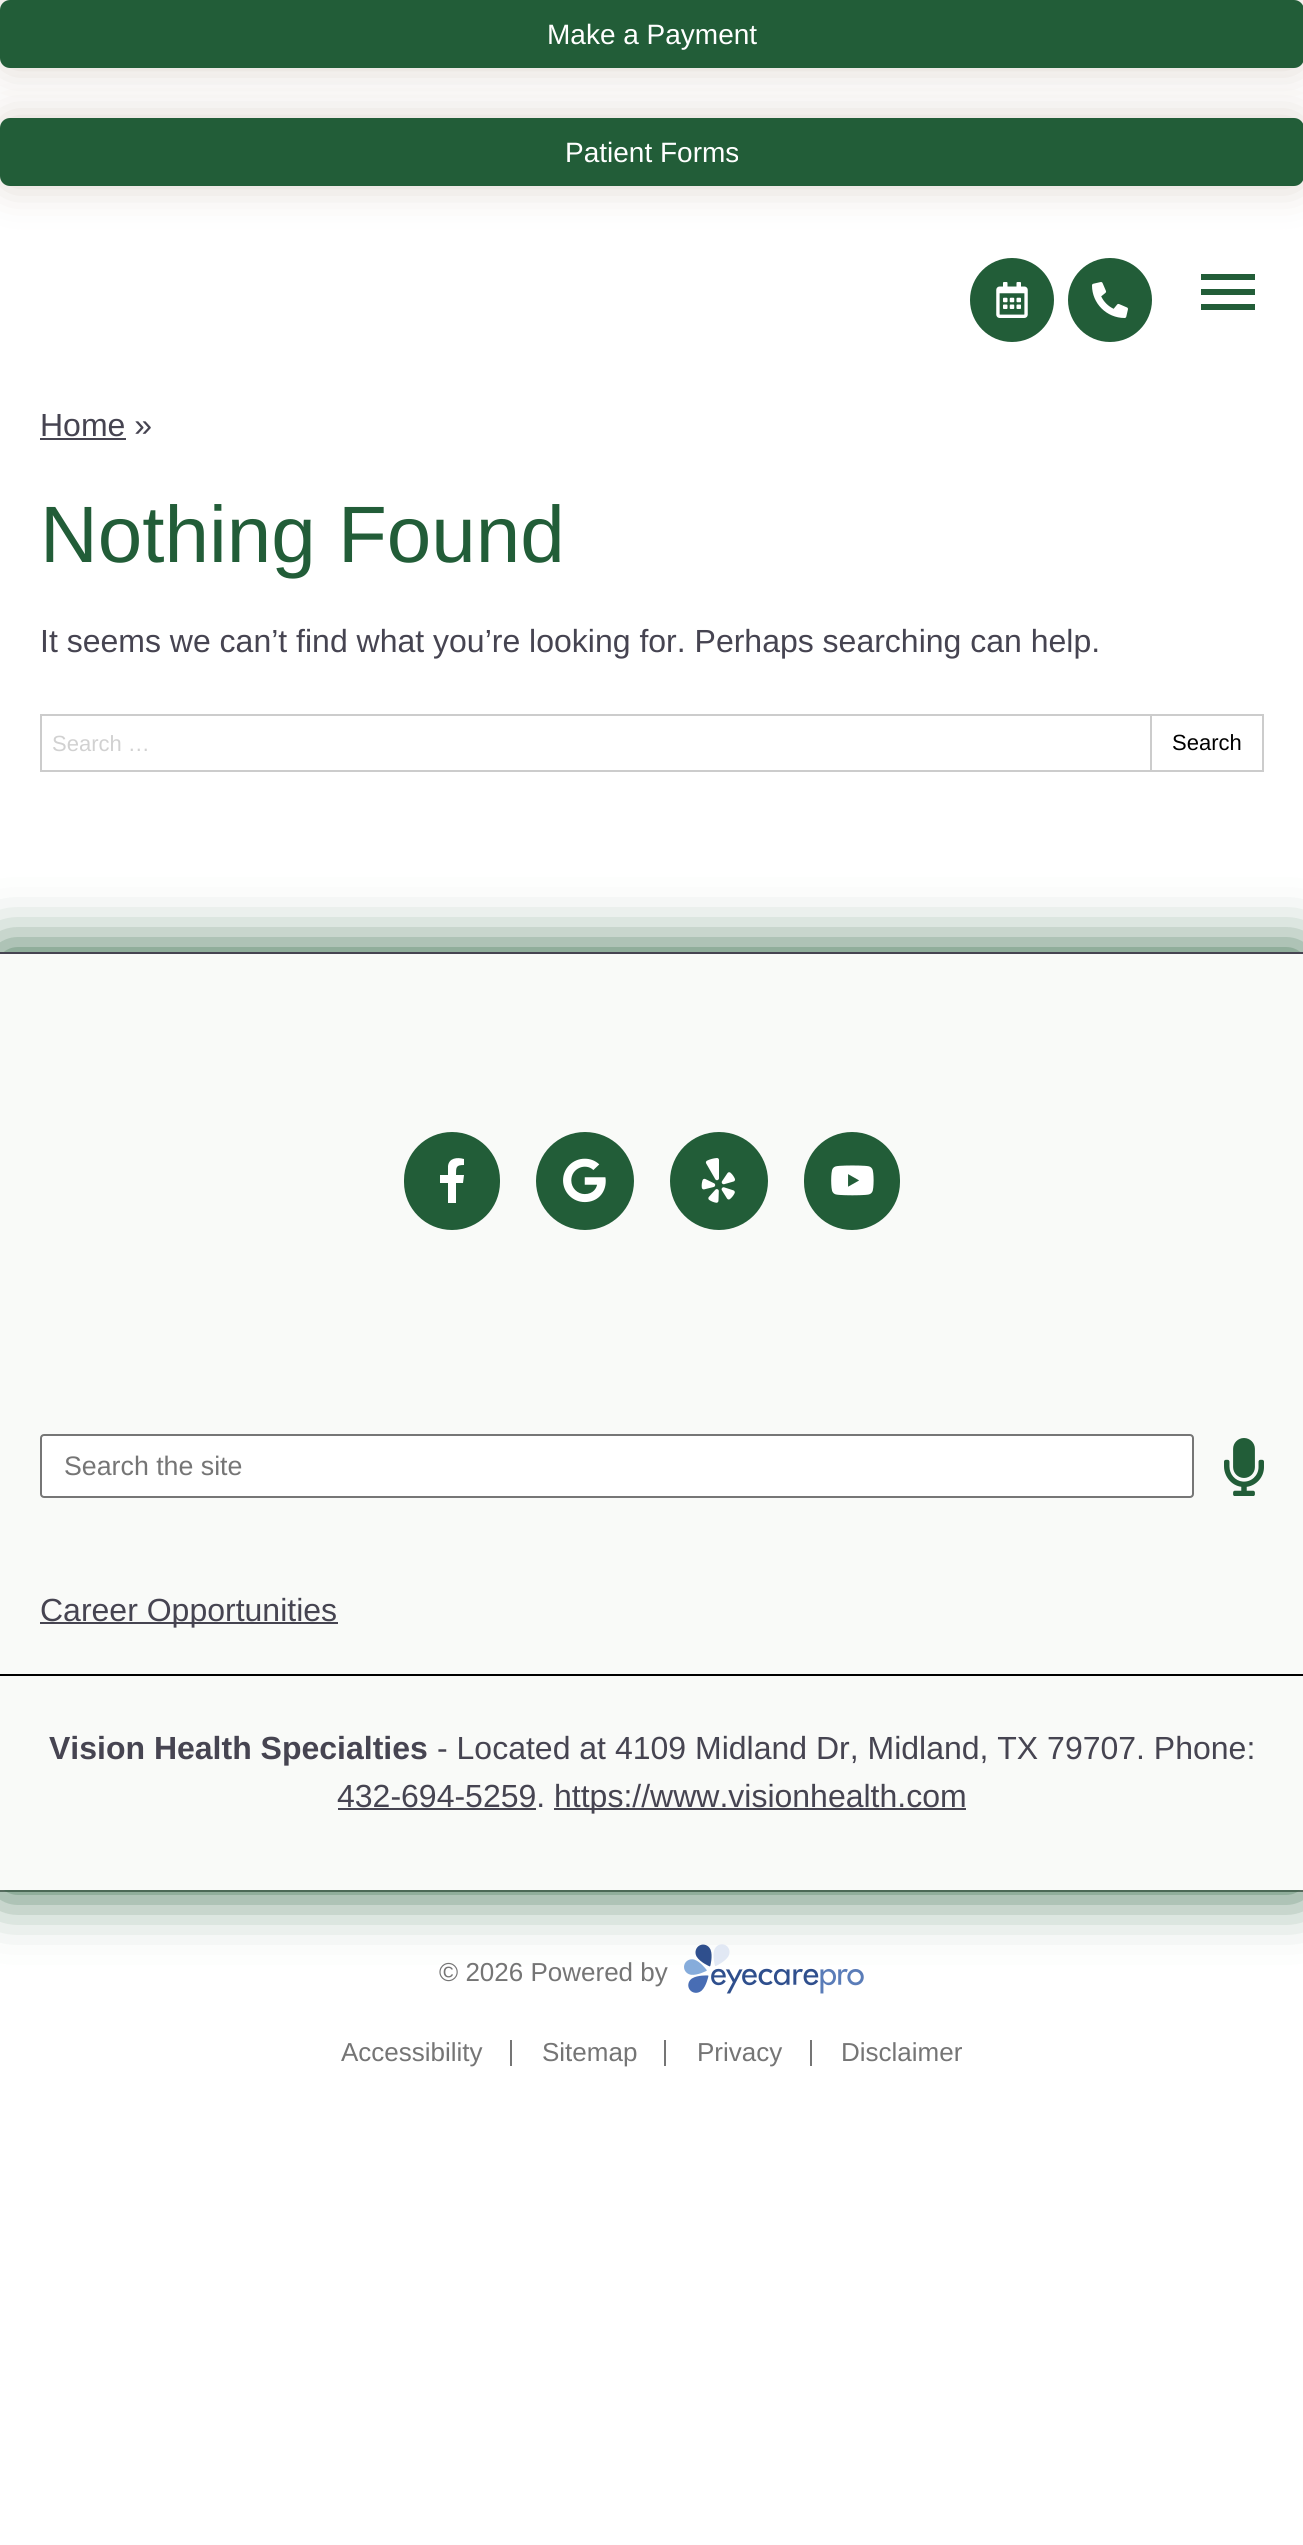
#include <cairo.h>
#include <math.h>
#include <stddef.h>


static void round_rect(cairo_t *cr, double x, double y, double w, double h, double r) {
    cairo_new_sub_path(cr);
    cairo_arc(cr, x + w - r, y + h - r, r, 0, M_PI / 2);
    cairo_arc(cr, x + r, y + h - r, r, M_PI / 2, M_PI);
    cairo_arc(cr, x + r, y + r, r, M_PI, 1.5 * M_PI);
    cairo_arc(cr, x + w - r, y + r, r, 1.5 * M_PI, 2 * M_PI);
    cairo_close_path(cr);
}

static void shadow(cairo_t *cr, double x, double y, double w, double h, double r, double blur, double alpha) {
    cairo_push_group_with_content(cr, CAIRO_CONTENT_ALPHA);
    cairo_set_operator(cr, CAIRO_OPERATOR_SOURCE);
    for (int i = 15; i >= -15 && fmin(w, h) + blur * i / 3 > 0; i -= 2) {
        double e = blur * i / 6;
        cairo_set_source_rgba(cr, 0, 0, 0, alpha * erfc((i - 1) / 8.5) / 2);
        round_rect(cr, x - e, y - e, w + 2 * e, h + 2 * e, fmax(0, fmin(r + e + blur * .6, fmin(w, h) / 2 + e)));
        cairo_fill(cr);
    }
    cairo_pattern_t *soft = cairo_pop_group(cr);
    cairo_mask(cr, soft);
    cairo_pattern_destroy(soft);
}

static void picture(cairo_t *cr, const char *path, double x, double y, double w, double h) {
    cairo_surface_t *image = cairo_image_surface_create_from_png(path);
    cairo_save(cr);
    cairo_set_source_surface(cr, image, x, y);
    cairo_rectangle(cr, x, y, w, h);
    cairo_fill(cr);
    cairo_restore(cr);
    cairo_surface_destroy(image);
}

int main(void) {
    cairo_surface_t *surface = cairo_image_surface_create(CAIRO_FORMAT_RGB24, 1303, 2545);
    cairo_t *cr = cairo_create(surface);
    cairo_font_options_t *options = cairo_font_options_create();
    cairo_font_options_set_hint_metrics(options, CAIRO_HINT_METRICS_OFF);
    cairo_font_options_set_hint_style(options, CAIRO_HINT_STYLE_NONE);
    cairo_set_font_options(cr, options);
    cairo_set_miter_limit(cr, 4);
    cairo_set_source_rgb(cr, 1, 1, 1);
    cairo_paint(cr);
    cairo_set_source_rgb(cr, 0.863, 0.827, 0.796);
    shadow(cr, 0, 0, 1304, 68, 10, 20, 1);
    cairo_set_source_rgb(cr, 0.133, 0.365, 0.22);
    round_rect(cr, 0, 0, 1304, 68, 10);
    cairo_fill(cr);
    cairo_select_font_face(cr, "Liberation Sans", CAIRO_FONT_SLANT_NORMAL, CAIRO_FONT_WEIGHT_NORMAL);
    cairo_set_font_size(cr, 28);
    cairo_set_source_rgb(cr, 1, 1, 1);
    cairo_move_to(cr, 547, 44);
    cairo_show_text(cr, "Make a Payment");
    cairo_set_source_rgb(cr, 0.863, 0.827, 0.796);
    shadow(cr, 0, 118, 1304, 68, 10, 20, 1);
    cairo_set_source_rgb(cr, 0.133, 0.365, 0.22);
    round_rect(cr, 0, 118, 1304, 68, 10);
    cairo_fill(cr);
    cairo_set_source_rgb(cr, 1, 1, 1);
    cairo_move_to(cr, 565, 162);
    cairo_show_text(cr, "Patient Forms");
    cairo_set_source_rgb(cr, 0.133, 0.365, 0.22);
    cairo_new_path(cr);
    cairo_arc(cr, 1012, 300, 42, 0, 2 * M_PI);
    cairo_fill(cr);
    picture(cr, "img1.png", 996, 282, 32, 36);
    cairo_arc(cr, 1110, 300, 42, 0, 2 * M_PI);
    cairo_fill(cr);
    picture(cr, "img2.png", 1092, 282, 36, 36);
    cairo_new_path(cr);
    cairo_move_to(cr, 1201, 274);
    cairo_line_to(cr, 1255, 274);
    cairo_line_to(cr, 1255, 280);
    cairo_line_to(cr, 1201, 280);
    cairo_line_to(cr, 1201, 274);
    cairo_move_to(cr, 1201, 289);
    cairo_line_to(cr, 1255, 289);
    cairo_line_to(cr, 1255, 295);
    cairo_line_to(cr, 1201, 295);
    cairo_line_to(cr, 1201, 289);
    cairo_move_to(cr, 1201, 304);
    cairo_line_to(cr, 1255, 304);
    cairo_line_to(cr, 1255, 310);
    cairo_line_to(cr, 1201, 310);
    cairo_close_path(cr);
    cairo_fill(cr);
    cairo_set_font_size(cr, 32);
    cairo_set_source_rgb(cr, 0.275, 0.267, 0.318);
    cairo_move_to(cr, 40, 436);
    cairo_show_text(cr, "Home »");
    cairo_rectangle(cr, 40, 438, 86, 2);
    cairo_fill(cr);
    cairo_set_font_size(cr, 80);
    cairo_set_source_rgb(cr, 0.133, 0.365, 0.22);
    cairo_move_to(cr, 40, 562);
    cairo_show_text(cr, "Nothing Found");
    cairo_set_font_size(cr, 32);
    cairo_set_source_rgb(cr, 0.275, 0.267, 0.318);
    cairo_move_to(cr, 40, 652);
    cairo_show_text(cr, "It seems we can’t find what you’re looking for. Perhaps searching can help.");
    cairo_rectangle(cr, 41, 715, 1110, 56);
    cairo_set_source_rgb(cr, 0.8, 0.8, 0.8);
    cairo_stroke(cr);
    cairo_set_font_size(cr, 22);
    cairo_set_source_rgb(cr, 0.82, 0.82, 0.82);
    cairo_move_to(cr, 52, 751);
    cairo_show_text(cr, "Search …");
    cairo_rectangle(cr, 1151, 715, 112, 56);
    cairo_set_source_rgb(cr, 0.8, 0.8, 0.8);
    cairo_stroke(cr);
    cairo_set_source_rgb(cr, 0, 0, 0);
    cairo_move_to(cr, 1172, 750);
    cairo_show_text(cr, "Search");
    cairo_set_source_rgb(cr, 0.459, 0.459, 0.459);
    cairo_rectangle(cr, 0, 1890, 1303, 2);
    cairo_fill(cr);
    cairo_set_source_rgb(cr, 0.133, 0.365, 0.22);
    shadow(cr, 0, 952, 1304, 938, 0, 30, 1);
    cairo_set_source_rgb(cr, 0.973, 0.98, 0.969);
    cairo_rectangle(cr, 0, 954, 1303, 936);
    cairo_fill(cr);
    cairo_set_source_rgb(cr, 0.275, 0.267, 0.318);
    cairo_rectangle(cr, 0, 952, 1303, 2);
    cairo_fill(cr);
    cairo_set_source_rgb(cr, 0.133, 0.365, 0.22);
    round_rect(cr, 406, 1134, 92, 94, 46);
    cairo_fill_preserve(cr);
    cairo_set_line_width(cr, 4);
    cairo_stroke(cr);
    cairo_set_source_rgb(cr, 1, 1, 1);
    cairo_new_path(cr);
    cairo_move_to(cr, 463, 1183);
    cairo_line_to(cr, 464, 1175);
    cairo_line_to(cr, 456, 1175);
    cairo_curve_to(cr, 456, 1167, 456, 1165, 464, 1165);
    cairo_line_to(cr, 464, 1159);
    cairo_curve_to(cr, 457, 1157, 449, 1158, 448, 1166);
    cairo_line_to(cr, 448, 1175);
    cairo_line_to(cr, 440, 1175);
    cairo_line_to(cr, 440, 1183);
    cairo_line_to(cr, 448, 1183);
    cairo_line_to(cr, 448, 1203);
    cairo_line_to(cr, 456, 1203);
    cairo_line_to(cr, 456, 1183);
    cairo_close_path(cr);
    cairo_fill(cr);
    cairo_set_source_rgb(cr, 0.133, 0.365, 0.22);
    cairo_arc(cr, 585, 1181, 47, 0, 2 * M_PI);
    cairo_fill_preserve(cr);
    cairo_stroke(cr);
    picture(cr, "img3.png", 563, 1158, 43, 45);
    cairo_arc(cr, 719, 1181, 47, 0, 2 * M_PI);
    cairo_fill_preserve(cr);
    cairo_stroke(cr);
    picture(cr, "img4.png", 701, 1158, 34, 45);
    round_rect(cr, 806, 1134, 92, 94, 46);
    cairo_fill_preserve(cr);
    cairo_stroke(cr);
    picture(cr, "img5.png", 831, 1165, 43, 31);
    cairo_set_source_rgb(cr, 1, 1, 1);
    round_rect(cr, 41, 1435, 1152, 62, 3);
    cairo_fill_preserve(cr);
    cairo_set_source_rgb(cr, 0.463, 0.463, 0.463);
    cairo_set_line_width(cr, 2);
    cairo_stroke(cr);
    cairo_set_font_size(cr, 26.75);
    cairo_set_source_rgb(cr, 0.459, 0.459, 0.459);
    cairo_move_to(cr, 64, 1475);
    cairo_show_text(cr, "Search the site");
    picture(cr, "img6.png", 1224, 1438, 40, 58);
    cairo_set_source_rgb(cr, 0.275, 0.267, 0.318);
    cairo_rectangle(cr, 40, 1622, 298, 2);
    cairo_fill(cr);
    cairo_set_font_size(cr, 32);
    cairo_move_to(cr, 40, 1621);
    cairo_show_text(cr, "Career Opportunities");
    cairo_set_source_rgb(cr, 0, 0, 0);
    cairo_rectangle(cr, 0, 1674, 1303, 2);
    cairo_fill(cr);
    cairo_select_font_face(cr, "Liberation Sans", CAIRO_FONT_SLANT_NORMAL, CAIRO_FONT_WEIGHT_BOLD);
    cairo_set_source_rgb(cr, 0.275, 0.267, 0.318);
    cairo_move_to(cr, 49, 1759);
    cairo_show_text(cr, "Vision Health Specialties");
    cairo_select_font_face(cr, "Liberation Sans", CAIRO_FONT_SLANT_NORMAL, CAIRO_FONT_WEIGHT_NORMAL);
    cairo_move_to(cr, 437, 1759);
    cairo_show_text(cr, "- Located at 4109 Midland Dr, Midland, TX 79707. Phone:");
    cairo_move_to(cr, 337, 1807);
    cairo_show_text(cr, "432-694-5259.");
    cairo_rectangle(cr, 338, 1808, 198, 2);
    cairo_fill(cr);
    cairo_rectangle(cr, 554, 1808, 412, 2);
    cairo_fill(cr);
    cairo_move_to(cr, 554, 1807);
    cairo_show_text(cr, "https://www.visionhealth.com");
    cairo_set_font_size(cr, 26);
    cairo_set_source_rgb(cr, 0.459, 0.459, 0.459);
    cairo_move_to(cr, 439, 1981);
    cairo_show_text(cr, "© 2026 Powered by");
    picture(cr, "img7.png", 684, 1944, 180, 50);
    cairo_move_to(cr, 341, 2061);
    cairo_show_text(cr, "Accessibility");
    cairo_rectangle(cr, 510, 2040, 2, 26);
    cairo_fill(cr);
    cairo_move_to(cr, 542, 2061);
    cairo_show_text(cr, "Sitemap");
    cairo_rectangle(cr, 664, 2040, 2, 26);
    cairo_fill(cr);
    cairo_move_to(cr, 697, 2061);
    cairo_show_text(cr, "Privacy");
    cairo_rectangle(cr, 810, 2040, 2, 26);
    cairo_fill(cr);
    cairo_move_to(cr, 841, 2061);
    cairo_show_text(cr, "Disclaimer");
    cairo_surface_write_to_png(surface, "page.png");
    cairo_font_options_destroy(options);
    cairo_destroy(cr);
    cairo_surface_destroy(surface);
    return 0;
}
